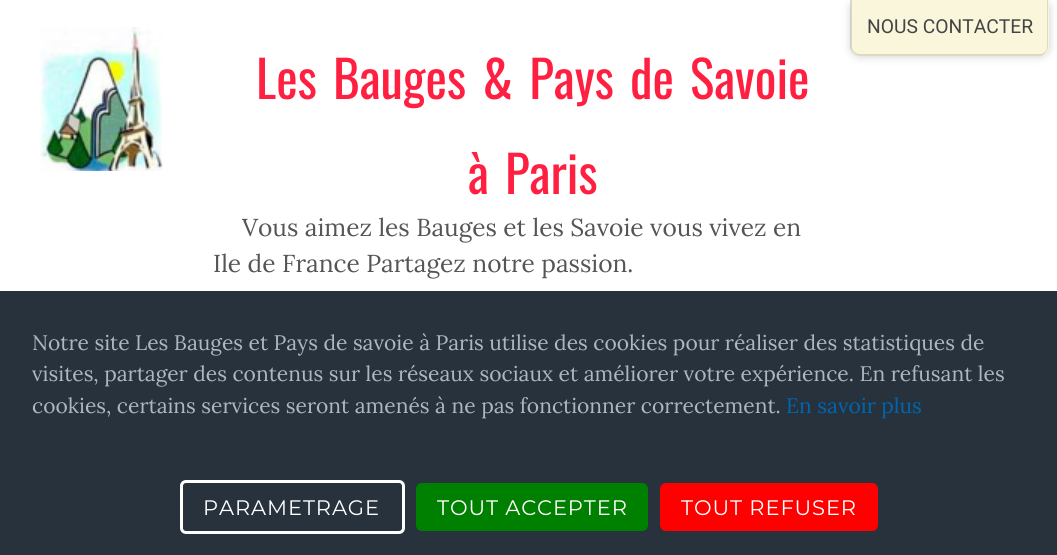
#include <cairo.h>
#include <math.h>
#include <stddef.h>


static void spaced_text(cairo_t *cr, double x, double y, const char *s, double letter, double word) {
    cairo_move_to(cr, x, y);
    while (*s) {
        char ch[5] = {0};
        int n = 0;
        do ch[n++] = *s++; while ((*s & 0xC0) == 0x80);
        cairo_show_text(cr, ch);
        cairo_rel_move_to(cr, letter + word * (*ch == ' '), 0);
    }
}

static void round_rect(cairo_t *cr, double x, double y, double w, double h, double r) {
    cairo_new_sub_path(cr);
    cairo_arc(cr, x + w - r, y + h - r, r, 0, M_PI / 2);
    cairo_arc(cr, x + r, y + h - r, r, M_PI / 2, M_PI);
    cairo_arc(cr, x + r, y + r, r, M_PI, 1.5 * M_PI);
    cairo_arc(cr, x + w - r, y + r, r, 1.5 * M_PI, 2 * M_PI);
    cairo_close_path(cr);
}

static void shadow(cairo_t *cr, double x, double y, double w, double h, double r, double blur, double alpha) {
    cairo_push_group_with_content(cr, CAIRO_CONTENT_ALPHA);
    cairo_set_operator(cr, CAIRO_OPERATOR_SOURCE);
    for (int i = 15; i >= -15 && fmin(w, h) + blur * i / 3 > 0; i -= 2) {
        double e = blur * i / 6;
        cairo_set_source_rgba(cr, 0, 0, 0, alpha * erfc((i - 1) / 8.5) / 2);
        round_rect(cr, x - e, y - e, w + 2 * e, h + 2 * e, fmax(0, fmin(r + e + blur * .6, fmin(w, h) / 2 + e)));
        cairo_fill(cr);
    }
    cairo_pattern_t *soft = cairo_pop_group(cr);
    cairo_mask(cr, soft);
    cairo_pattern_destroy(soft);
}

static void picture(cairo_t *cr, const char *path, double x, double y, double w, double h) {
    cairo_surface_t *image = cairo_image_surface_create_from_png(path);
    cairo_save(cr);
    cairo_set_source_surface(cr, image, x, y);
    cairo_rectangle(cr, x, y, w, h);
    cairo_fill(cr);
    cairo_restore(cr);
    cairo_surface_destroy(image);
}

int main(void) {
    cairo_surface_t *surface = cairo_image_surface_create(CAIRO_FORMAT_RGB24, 1057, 555);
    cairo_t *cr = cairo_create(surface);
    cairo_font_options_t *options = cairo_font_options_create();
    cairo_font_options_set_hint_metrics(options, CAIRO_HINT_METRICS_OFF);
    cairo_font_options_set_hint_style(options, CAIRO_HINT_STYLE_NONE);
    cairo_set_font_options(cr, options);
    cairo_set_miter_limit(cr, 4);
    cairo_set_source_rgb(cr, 1, 1, 1);
    cairo_paint(cr);
    cairo_set_source_rgb(cr, 0, 0, 0);
    shadow(cr, 851, 0, 198, 56, 9, 4.5, 0.2);
    cairo_set_source_rgb(cr, 0.98, 0.961, 0.863);
    cairo_new_path(cr);
    cairo_move_to(cr, 851, 0);
    cairo_line_to(cr, 1049, 0);
    cairo_line_to(cr, 1049, 47);
    cairo_curve_to(cr, 1049, 52, 1045, 56, 1040, 56);
    cairo_line_to(cr, 860, 56);
    cairo_curve_to(cr, 855, 56, 851, 52, 851, 47);
    cairo_close_path(cr);
    cairo_fill(cr);
    cairo_set_source_rgba(cr, 0, 0, 0, 0.12);
    cairo_set_fill_rule(cr, CAIRO_FILL_RULE_EVEN_ODD);
    cairo_new_path(cr);
    cairo_move_to(cr, 850, 0);
    cairo_line_to(cr, 1048, 0);
    cairo_line_to(cr, 1048, 46);
    cairo_curve_to(cr, 1048, 51, 1044, 56, 1040, 56);
    cairo_line_to(cr, 860, 56);
    cairo_curve_to(cr, 855, 56, 850, 51, 850, 46);
    cairo_close_path(cr);
    cairo_move_to(cr, 852, 0);
    cairo_line_to(cr, 1047, 0);
    cairo_line_to(cr, 1047, 46);
    cairo_curve_to(cr, 1047, 51, 1044, 54, 1040, 54);
    cairo_line_to(cr, 860, 54);
    cairo_curve_to(cr, 855, 54, 852, 51, 852, 46);
    cairo_close_path(cr);
    cairo_fill(cr);
    cairo_select_font_face(cr, "Roboto", CAIRO_FONT_SLANT_NORMAL, CAIRO_FONT_WEIGHT_NORMAL);
    cairo_set_font_size(cr, 19.25);
    cairo_set_source_rgb(cr, 0.267, 0.267, 0.267);
    cairo_move_to(cr, 867, 33);
    cairo_show_text(cr, "NOUS CONTACTER");
    picture(cr, "img1.png", 40, 27, 123, 144);
    cairo_select_font_face(cr, "Oswald", CAIRO_FONT_SLANT_NORMAL, CAIRO_FONT_WEIGHT_NORMAL);
    cairo_set_font_size(cr, 51);
    cairo_set_source_rgb(cr, 1, 0.122, 0.255);
    spaced_text(cr, 256, 99, "Les Bauges & Pays de Savoie", 0, 4.5);
    spaced_text(cr, 468, 194, "à Paris", 0, 4.5);
    cairo_select_font_face(cr, "Lora", CAIRO_FONT_SLANT_NORMAL, CAIRO_FONT_WEIGHT_NORMAL);
    cairo_set_font_size(cr, 24.5);
    cairo_set_source_rgb(cr, 0.333, 0.333, 0.333);
    cairo_move_to(cr, 242, 236);
    cairo_show_text(cr, "Vous aimez les Bauges et les Savoie vous vivez en");
    cairo_move_to(cr, 213, 272);
    cairo_show_text(cr, "Ile de France Partagez notre passion.");
    cairo_set_source_rgb(cr, 0.153, 0.196, 0.239);
    cairo_rectangle(cr, 0, 291, 1057, 264);
    cairo_fill(cr);
    cairo_set_font_size(cr, 21);
    cairo_set_source_rgb(cr, 0.675, 0.722, 0.757);
    cairo_move_to(cr, 32, 350);
    cairo_show_text(cr, "Notre site Les Bauges et Pays de savoie à Paris utilise des cookies pour réaliser des statistiques de");
    cairo_move_to(cr, 32, 381);
    cairo_show_text(cr, "visites, partager des contenus sur les réseaux sociaux et améliorer votre expérience. En refusant les");
    cairo_move_to(cr, 32, 413);
    cairo_show_text(cr, "cookies, certains services seront amenés à ne pas fonctionner correctement.");
    cairo_set_source_rgb(cr, 0, 0.396, 0.686);
    cairo_move_to(cr, 786, 413);
    cairo_show_text(cr, "En savoir plus");
    round_rect(cr, 181.5, 481.5, 222, 51, 4.5);
    cairo_set_source_rgb(cr, 1, 1, 1);
    cairo_set_line_width(cr, 3);
    cairo_stroke(cr);
    cairo_select_font_face(cr, "Montserrat Thin", CAIRO_FONT_SLANT_NORMAL, CAIRO_FONT_WEIGHT_NORMAL);
    spaced_text(cr, 203, 515, "PARAMETRAGE", 0.9, 0);
    cairo_set_source_rgb(cr, 0, 0.502, 0);
    round_rect(cr, 416, 483, 232, 48, 6);
    cairo_fill(cr);
    cairo_set_source_rgb(cr, 1, 1, 1);
    spaced_text(cr, 437, 515, "TOUT ACCEPTER", 0.9, 0);
    cairo_set_source_rgb(cr, 1, 0, 0);
    round_rect(cr, 660, 483, 218, 48, 6);
    cairo_fill(cr);
    cairo_set_source_rgb(cr, 1, 1, 1);
    spaced_text(cr, 681, 515, "TOUT REFUSER", 0.9, 0);
    cairo_surface_write_to_png(surface, "page.png");
    cairo_font_options_destroy(options);
    cairo_destroy(cr);
    cairo_surface_destroy(surface);
    return 0;
}
